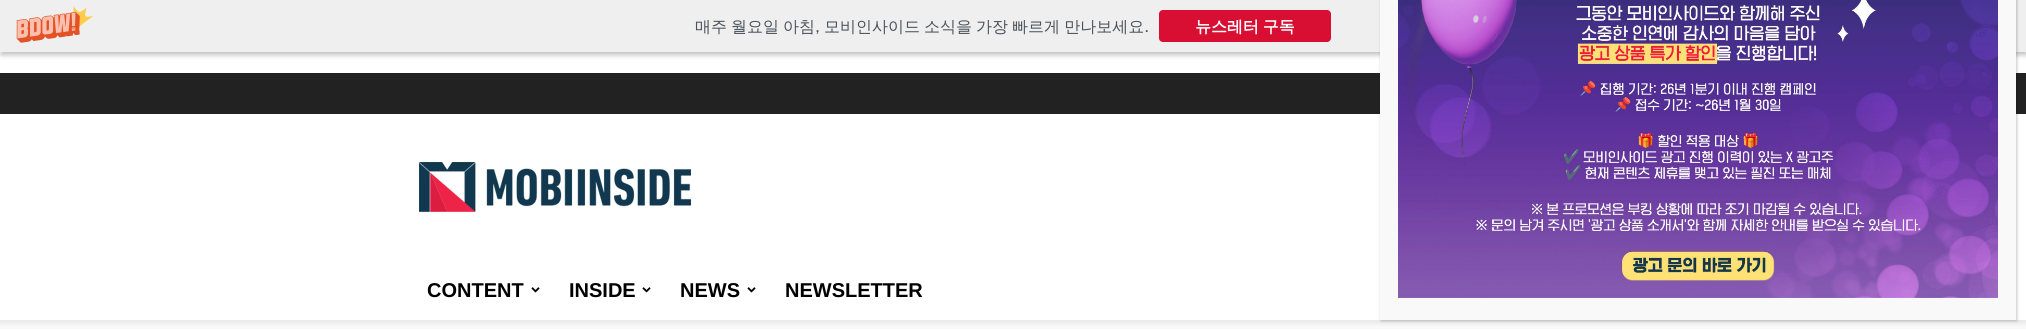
#include <cairo.h>
#include <math.h>
#include <stddef.h>


static void spaced_text(cairo_t *cr, double x, double y, const char *s, double letter, double word) {
    cairo_move_to(cr, x, y);
    while (*s) {
        char ch[5] = {0};
        int n = 0;
        do ch[n++] = *s++; while ((*s & 0xC0) == 0x80);
        cairo_show_text(cr, ch);
        cairo_rel_move_to(cr, letter + word * (*ch == ' '), 0);
    }
}

static void round_rect(cairo_t *cr, double x, double y, double w, double h, double r) {
    cairo_new_sub_path(cr);
    cairo_arc(cr, x + w - r, y + h - r, r, 0, M_PI / 2);
    cairo_arc(cr, x + r, y + h - r, r, M_PI / 2, M_PI);
    cairo_arc(cr, x + r, y + r, r, M_PI, 1.5 * M_PI);
    cairo_arc(cr, x + w - r, y + r, r, 1.5 * M_PI, 2 * M_PI);
    cairo_close_path(cr);
}

static void shadow(cairo_t *cr, double x, double y, double w, double h, double r, double blur, double alpha) {
    cairo_push_group_with_content(cr, CAIRO_CONTENT_ALPHA);
    cairo_set_operator(cr, CAIRO_OPERATOR_SOURCE);
    for (int i = 15; i >= -15 && fmin(w, h) + blur * i / 3 > 0; i -= 2) {
        double e = blur * i / 6;
        cairo_set_source_rgba(cr, 0, 0, 0, alpha * erfc((i - 1) / 8.5) / 2);
        round_rect(cr, x - e, y - e, w + 2 * e, h + 2 * e, fmax(0, fmin(r + e + blur * .6, fmin(w, h) / 2 + e)));
        cairo_fill(cr);
    }
    cairo_pattern_t *soft = cairo_pop_group(cr);
    cairo_mask(cr, soft);
    cairo_pattern_destroy(soft);
}

static void picture(cairo_t *cr, const char *path, double x, double y, double w, double h) {
    cairo_surface_t *image = cairo_image_surface_create_from_png(path);
    cairo_save(cr);
    cairo_set_source_surface(cr, image, x, y);
    cairo_rectangle(cr, x, y, w, h);
    cairo_fill(cr);
    cairo_restore(cr);
    cairo_surface_destroy(image);
}

int main(void) {
    cairo_surface_t *surface = cairo_image_surface_create(CAIRO_FORMAT_RGB24, 2026, 330);
    cairo_t *cr = cairo_create(surface);
    cairo_font_options_t *options = cairo_font_options_create();
    cairo_font_options_set_hint_metrics(options, CAIRO_HINT_METRICS_OFF);
    cairo_font_options_set_hint_style(options, CAIRO_HINT_STYLE_NONE);
    cairo_set_font_options(cr, options);
    cairo_set_miter_limit(cr, 4);
    cairo_set_source_rgb(cr, 1, 1, 1);
    cairo_paint(cr);
    cairo_set_source_rgb(cr, 0, 0, 0);
    shadow(cr, 1, 3, 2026, 52, 0, 2.5, 0.25);
    cairo_set_source_rgb(cr, 0.937, 0.937, 0.937);
    cairo_rectangle(cr, 0, 0, 2026, 52);
    cairo_fill(cr);
    picture(cr, "img1.png", 16, 6, 78, 37);
    cairo_select_font_face(cr, "WenQuanYi Zen Hei Medium", CAIRO_FONT_SLANT_NORMAL, CAIRO_FONT_WEIGHT_NORMAL);
    cairo_set_font_size(cr, 16);
    cairo_set_source_rgb(cr, 0.286, 0.322, 0.349);
    spaced_text(cr, 695, 32, "매주 월요일 아침, 모비인사이드 소식을 가장 빠르게 만나보세요.", 0, -0.75);
    cairo_set_source_rgb(cr, 0.847, 0.055, 0.196);
    round_rect(cr, 1159, 10, 172, 32, 4);
    cairo_fill(cr);
    cairo_select_font_face(cr, "WenQuanYi Zen Hei", CAIRO_FONT_SLANT_NORMAL, CAIRO_FONT_WEIGHT_BOLD);
    cairo_set_source_rgb(cr, 1, 1, 1);
    spaced_text(cr, 1195, 32, "뉴스레터 구독", 0, -1);
    cairo_set_source_rgb(cr, 0.133, 0.133, 0.133);
    cairo_rectangle(cr, 0, 73, 2026, 41);
    cairo_fill(cr);
    picture(cr, "img5.png", 0, 320, 2026, 9);
    cairo_set_source_rgb(cr, 0.008, 0.008, 0.008);
    shadow(cr, 1381, -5, 636, 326, 0, 1.5, 0.23);
    cairo_set_source_rgb(cr, 0.976, 0.976, 0.976);
    cairo_rectangle(cr, 1380, 0, 636, 320);
    cairo_fill(cr);
    picture(cr, "img2.png", 1398, 0, 600, 298);
    picture(cr, "img3.png", 419, 162, 272, 50);
    cairo_select_font_face(cr, "Liberation Sans", CAIRO_FONT_SLANT_NORMAL, CAIRO_FONT_WEIGHT_BOLD);
    cairo_set_font_size(cr, 20);
    cairo_set_source_rgb(cr, 0, 0, 0);
    cairo_move_to(cr, 427, 297);
    cairo_show_text(cr, "CONTENT");
    picture(cr, "img4.png", 531, 287, 9, 6);
    cairo_move_to(cr, 569, 297);
    cairo_show_text(cr, "INSIDE");
    picture(cr, "img4.png", 642, 287, 9, 6);
    cairo_move_to(cr, 680, 297);
    cairo_show_text(cr, "NEWS");
    picture(cr, "img4.png", 747, 287, 9, 6);
    cairo_move_to(cr, 785, 297);
    cairo_show_text(cr, "NEWSLETTER");
    cairo_surface_write_to_png(surface, "page.png");
    cairo_font_options_destroy(options);
    cairo_destroy(cr);
    cairo_surface_destroy(surface);
    return 0;
}
